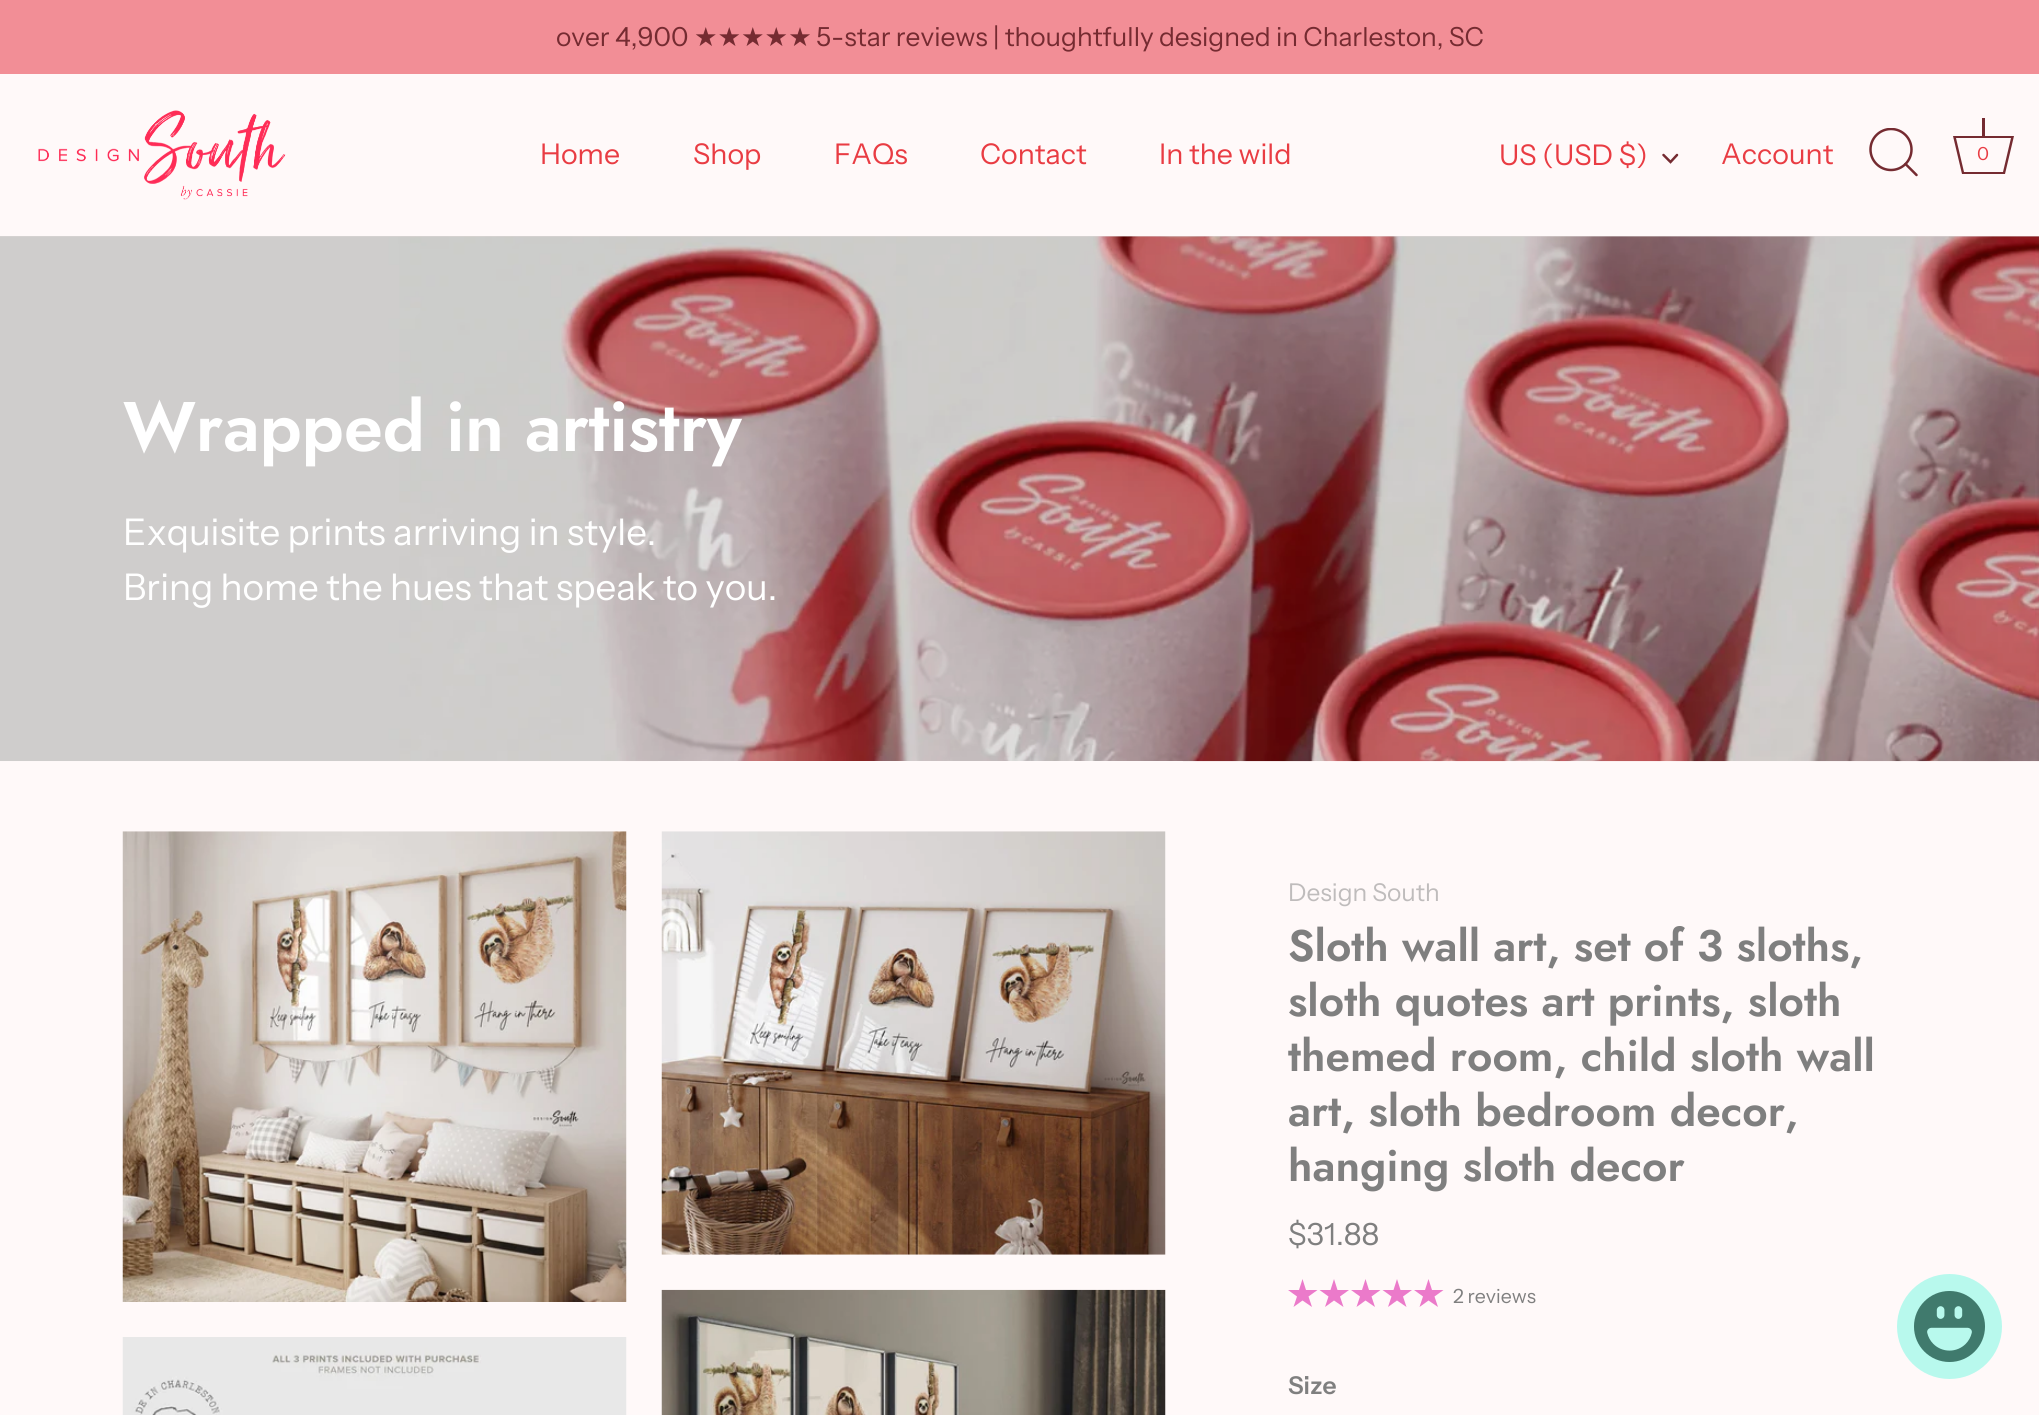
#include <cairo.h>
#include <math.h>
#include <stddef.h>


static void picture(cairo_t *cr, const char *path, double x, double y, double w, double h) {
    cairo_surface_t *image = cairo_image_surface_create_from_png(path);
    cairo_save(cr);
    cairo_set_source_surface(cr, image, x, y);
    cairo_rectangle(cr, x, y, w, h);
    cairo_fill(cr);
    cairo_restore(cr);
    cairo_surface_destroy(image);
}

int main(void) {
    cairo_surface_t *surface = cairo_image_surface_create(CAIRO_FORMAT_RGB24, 2039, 1415);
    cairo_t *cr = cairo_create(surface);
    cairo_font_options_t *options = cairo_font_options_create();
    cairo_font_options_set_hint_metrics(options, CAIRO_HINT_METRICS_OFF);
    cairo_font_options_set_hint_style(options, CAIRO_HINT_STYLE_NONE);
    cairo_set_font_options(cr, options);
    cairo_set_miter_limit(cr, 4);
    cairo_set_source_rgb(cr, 1, 0.976, 0.973);
    cairo_paint(cr);
    cairo_set_source_rgb(cr, 0.871, 0.851, 0.847);
    cairo_rectangle(cr, 0, 236, 2039, 1);
    cairo_fill(cr);
    cairo_set_source_rgb(cr, 0.949, 0.557, 0.588);
    cairo_rectangle(cr, 0, 0, 2039, 74);
    cairo_fill(cr);
    cairo_select_font_face(cr, "Instrument Sans", CAIRO_FONT_SLANT_NORMAL, CAIRO_FONT_WEIGHT_NORMAL);
    cairo_set_font_size(cr, 26.25);
    cairo_set_source_rgb(cr, 0.459, 0.169, 0.192);
    cairo_move_to(cr, 556, 46);
    cairo_show_text(cr, "over 4,900");
    cairo_select_font_face(cr, "DejaVu Sans", CAIRO_FONT_SLANT_NORMAL, CAIRO_FONT_WEIGHT_NORMAL);
    cairo_move_to(cr, 694, 46);
    cairo_show_text(cr, "★★★★★");
    cairo_select_font_face(cr, "Instrument Sans", CAIRO_FONT_SLANT_NORMAL, CAIRO_FONT_WEIGHT_NORMAL);
    cairo_move_to(cr, 816, 46);
    cairo_show_text(cr, "5-star reviews | thoughtfully designed in Charleston, SC");
    picture(cr, "img1.png", 38, 110, 248, 90);
    cairo_set_font_size(cr, 28.5);
    cairo_set_source_rgb(cr, 0.914, 0.235, 0.263);
    cairo_move_to(cr, 540, 164);
    cairo_show_text(cr, "Home");
    cairo_move_to(cr, 693, 164);
    cairo_show_text(cr, "Shop");
    cairo_move_to(cr, 834, 164);
    cairo_show_text(cr, "FAQs");
    cairo_move_to(cr, 980, 164);
    cairo_show_text(cr, "Contact");
    cairo_move_to(cr, 1159, 164);
    cairo_show_text(cr, "In the wild");
    cairo_move_to(cr, 1499, 165);
    cairo_show_text(cr, "US (USD $)");
    cairo_new_path(cr);
    cairo_move_to(cr, 1663.5, 155);
    cairo_line_to(cr, 1670.5, 162);
    cairo_line_to(cr, 1677, 155);
    cairo_set_source_rgb(cr, 0.459, 0.169, 0.192);
    cairo_set_line_width(cr, 2.5);
    cairo_set_line_cap(cr, CAIRO_LINE_CAP_ROUND);
    cairo_stroke(cr);
    cairo_set_source_rgb(cr, 0.914, 0.235, 0.263);
    cairo_move_to(cr, 1721, 164);
    cairo_show_text(cr, "Account");
    cairo_save(cr);
    cairo_rectangle(cr, 1869, 128, 51, 51);
    cairo_clip(cr);
    cairo_arc(cr, 1891, 149.5, 20.5, 0, 2 * M_PI);
    cairo_set_source_rgb(cr, 0.459, 0.169, 0.192);
    cairo_set_line_cap(cr, CAIRO_LINE_CAP_BUTT);
    cairo_stroke(cr);
    cairo_restore(cr);
    cairo_new_path(cr);
    cairo_move_to(cr, 1916.5, 175);
    cairo_line_to(cr, 1905.5, 164);
    cairo_set_source_rgb(cr, 0.459, 0.169, 0.192);
    cairo_set_line_join(cr, CAIRO_LINE_JOIN_ROUND);
    cairo_stroke(cr);
    cairo_rectangle(cr, 1982, 118, 3, 18);
    cairo_fill(cr);
    cairo_new_path(cr);
    cairo_move_to(cr, 2011, 138);
    cairo_line_to(cr, 2003, 172);
    cairo_line_to(cr, 1964, 172);
    cairo_line_to(cr, 1956, 138);
    cairo_line_to(cr, 2011, 138);
    cairo_move_to(cr, 2014, 136);
    cairo_line_to(cr, 1953, 136);
    cairo_line_to(cr, 1962, 174);
    cairo_line_to(cr, 2005, 174);
    cairo_close_path(cr);
    cairo_fill(cr);
    cairo_set_font_size(cr, 18);
    cairo_set_source_rgb(cr, 0.914, 0.235, 0.263);
    cairo_move_to(cr, 1977, 160);
    cairo_show_text(cr, "0");
    picture(cr, "img2.png", 0, 236, 2039, 526);
    cairo_select_font_face(cr, "Jost SemiBold", CAIRO_FONT_SLANT_NORMAL, CAIRO_FONT_WEIGHT_NORMAL);
    cairo_set_font_size(cr, 70);
    cairo_set_source_rgb(cr, 1, 1, 1);
    cairo_move_to(cr, 123, 451);
    cairo_show_text(cr, "Wrapped in artistry");
    cairo_select_font_face(cr, "Instrument Sans", CAIRO_FONT_SLANT_NORMAL, CAIRO_FONT_WEIGHT_NORMAL);
    cairo_set_font_size(cr, 36.75);
    cairo_move_to(cr, 123, 545);
    cairo_show_text(cr, "Exquisite prints arriving in style.");
    cairo_move_to(cr, 123, 600);
    cairo_show_text(cr, "Bring home the hues that speak to you.");
    cairo_set_source_rgb(cr, 1, 0.976, 0.973);
    cairo_rectangle(cr, 658, 761, 525, 1);
    cairo_fill(cr);
    picture(cr, "img3.png", 122, 831, 505, 471);
    picture(cr, "img4.png", 122, 1337, 505, 78);
    picture(cr, "img5.png", 661, 831, 505, 424);
    picture(cr, "img6.png", 661, 1289, 505, 126);
    cairo_set_font_size(cr, 24.5);
    cairo_set_source_rgb(cr, 0.749, 0.737, 0.737);
    cairo_move_to(cr, 1288, 901);
    cairo_show_text(cr, "Design South");
    cairo_select_font_face(cr, "Jost SemiBold", CAIRO_FONT_SLANT_NORMAL, CAIRO_FONT_WEIGHT_NORMAL);
    cairo_set_font_size(cr, 44.1);
    cairo_set_source_rgb(cr, 0.498, 0.498, 0.498);
    cairo_move_to(cr, 1288, 961);
    cairo_show_text(cr, "Sloth wall art, set of 3 sloths,");
    cairo_move_to(cr, 1288, 1016);
    cairo_show_text(cr, "sloth quotes art prints, sloth");
    cairo_move_to(cr, 1288, 1071);
    cairo_show_text(cr, "themed room, child sloth wall");
    cairo_move_to(cr, 1288, 1126);
    cairo_show_text(cr, "art, sloth bedroom decor,");
    cairo_move_to(cr, 1288, 1181);
    cairo_show_text(cr, "hanging sloth decor");
    cairo_select_font_face(cr, "Instrument Sans", CAIRO_FONT_SLANT_NORMAL, CAIRO_FONT_WEIGHT_NORMAL);
    cairo_set_font_size(cr, 30.5);
    cairo_move_to(cr, 1288, 1245);
    cairo_show_text(cr, "$31.88");
    cairo_set_source_rgb(cr, 0.918, 0.478, 0.792);
    cairo_set_fill_rule(cr, CAIRO_FILL_RULE_EVEN_ODD);
    cairo_new_path(cr);
    cairo_move_to(cr, 1306, 1290);
    cairo_line_to(cr, 1317.5, 1290);
    cairo_line_to(cr, 1308.5, 1296.5);
    cairo_line_to(cr, 1312, 1307);
    cairo_line_to(cr, 1302.5, 1300.5);
    cairo_line_to(cr, 1293.5, 1307);
    cairo_line_to(cr, 1297, 1296.5);
    cairo_line_to(cr, 1288, 1290);
    cairo_line_to(cr, 1299, 1290);
    cairo_line_to(cr, 1302.5, 1279);
    cairo_close_path(cr);
    cairo_move_to(cr, 1337.5, 1290);
    cairo_line_to(cr, 1349, 1290);
    cairo_line_to(cr, 1340, 1296.5);
    cairo_line_to(cr, 1343.5, 1307);
    cairo_line_to(cr, 1334, 1300.5);
    cairo_line_to(cr, 1325, 1307);
    cairo_line_to(cr, 1328.5, 1296.5);
    cairo_line_to(cr, 1319.5, 1290);
    cairo_line_to(cr, 1330.5, 1290);
    cairo_line_to(cr, 1334, 1279);
    cairo_close_path(cr);
    cairo_fill(cr);
    cairo_new_path(cr);
    cairo_move_to(cr, 1369, 1290);
    cairo_line_to(cr, 1380.5, 1290);
    cairo_line_to(cr, 1371.5, 1296.5);
    cairo_line_to(cr, 1375, 1307);
    cairo_line_to(cr, 1365.5, 1300.5);
    cairo_line_to(cr, 1356.5, 1307);
    cairo_line_to(cr, 1360, 1296.5);
    cairo_line_to(cr, 1351, 1290);
    cairo_line_to(cr, 1362, 1290);
    cairo_line_to(cr, 1365.5, 1279);
    cairo_close_path(cr);
    cairo_move_to(cr, 1400.5, 1290);
    cairo_line_to(cr, 1412, 1290);
    cairo_line_to(cr, 1403, 1296.5);
    cairo_line_to(cr, 1406.5, 1307);
    cairo_line_to(cr, 1397, 1300.5);
    cairo_line_to(cr, 1388, 1307);
    cairo_line_to(cr, 1391.5, 1296.5);
    cairo_line_to(cr, 1382.5, 1290);
    cairo_line_to(cr, 1393.5, 1290);
    cairo_line_to(cr, 1397, 1279);
    cairo_close_path(cr);
    cairo_fill(cr);
    cairo_new_path(cr);
    cairo_move_to(cr, 1432, 1290);
    cairo_line_to(cr, 1443.5, 1290);
    cairo_line_to(cr, 1434.5, 1296.5);
    cairo_line_to(cr, 1438, 1307);
    cairo_line_to(cr, 1428.5, 1300.5);
    cairo_line_to(cr, 1419.5, 1307);
    cairo_line_to(cr, 1423, 1296.5);
    cairo_line_to(cr, 1414, 1290);
    cairo_line_to(cr, 1425, 1290);
    cairo_line_to(cr, 1428.5, 1279);
    cairo_close_path(cr);
    cairo_fill(cr);
    cairo_set_font_size(cr, 19.5);
    cairo_set_source_rgb(cr, 0.498, 0.498, 0.498);
    cairo_move_to(cr, 1453, 1303);
    cairo_show_text(cr, "2 reviews");
    cairo_select_font_face(cr, "Instrument Sans SemiBold", CAIRO_FONT_SLANT_NORMAL, CAIRO_FONT_WEIGHT_NORMAL);
    cairo_set_font_size(cr, 24.5);
    cairo_move_to(cr, 1288, 1394);
    cairo_show_text(cr, "Size");
    cairo_set_source_rgb(cr, 0.722, 0.976, 0.929);
    cairo_new_path(cr);
    cairo_arc(cr, 1949.5, 1326.5, 52.5, 0, 2 * M_PI);
    cairo_fill(cr);
    picture(cr, "img7.png", 1914, 1291, 71, 71);
    cairo_surface_write_to_png(surface, "page.png");
    cairo_font_options_destroy(options);
    cairo_destroy(cr);
    cairo_surface_destroy(surface);
    return 0;
}
